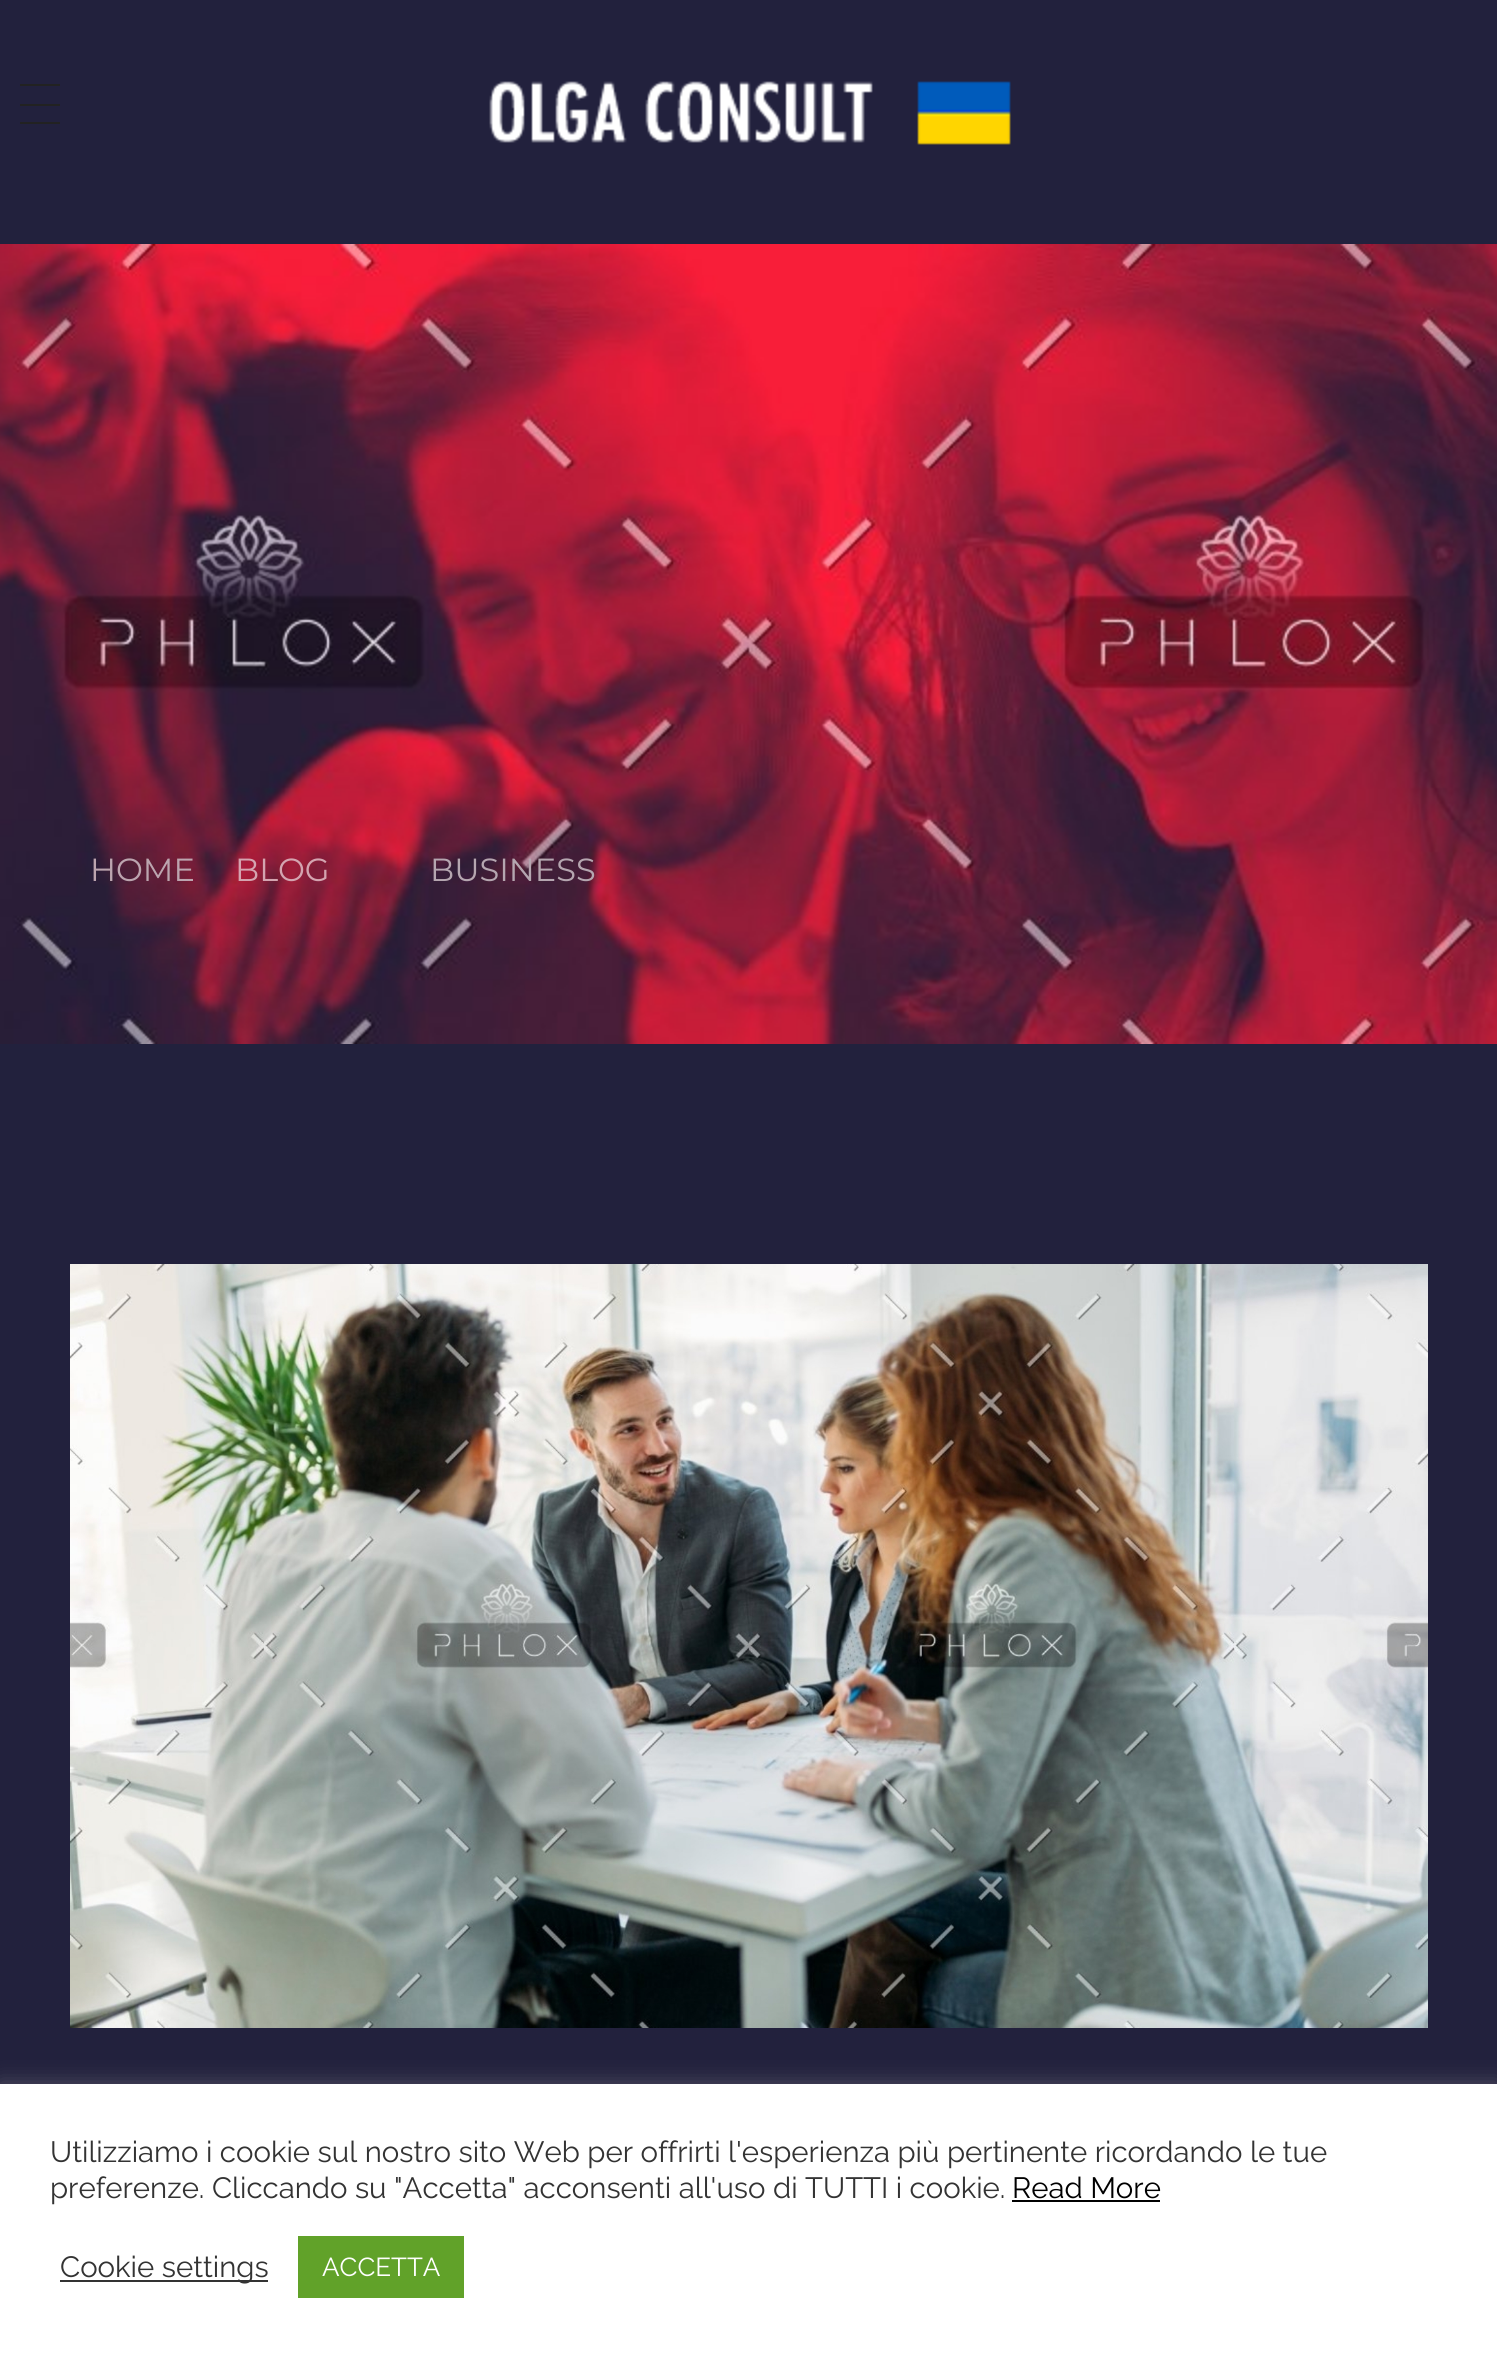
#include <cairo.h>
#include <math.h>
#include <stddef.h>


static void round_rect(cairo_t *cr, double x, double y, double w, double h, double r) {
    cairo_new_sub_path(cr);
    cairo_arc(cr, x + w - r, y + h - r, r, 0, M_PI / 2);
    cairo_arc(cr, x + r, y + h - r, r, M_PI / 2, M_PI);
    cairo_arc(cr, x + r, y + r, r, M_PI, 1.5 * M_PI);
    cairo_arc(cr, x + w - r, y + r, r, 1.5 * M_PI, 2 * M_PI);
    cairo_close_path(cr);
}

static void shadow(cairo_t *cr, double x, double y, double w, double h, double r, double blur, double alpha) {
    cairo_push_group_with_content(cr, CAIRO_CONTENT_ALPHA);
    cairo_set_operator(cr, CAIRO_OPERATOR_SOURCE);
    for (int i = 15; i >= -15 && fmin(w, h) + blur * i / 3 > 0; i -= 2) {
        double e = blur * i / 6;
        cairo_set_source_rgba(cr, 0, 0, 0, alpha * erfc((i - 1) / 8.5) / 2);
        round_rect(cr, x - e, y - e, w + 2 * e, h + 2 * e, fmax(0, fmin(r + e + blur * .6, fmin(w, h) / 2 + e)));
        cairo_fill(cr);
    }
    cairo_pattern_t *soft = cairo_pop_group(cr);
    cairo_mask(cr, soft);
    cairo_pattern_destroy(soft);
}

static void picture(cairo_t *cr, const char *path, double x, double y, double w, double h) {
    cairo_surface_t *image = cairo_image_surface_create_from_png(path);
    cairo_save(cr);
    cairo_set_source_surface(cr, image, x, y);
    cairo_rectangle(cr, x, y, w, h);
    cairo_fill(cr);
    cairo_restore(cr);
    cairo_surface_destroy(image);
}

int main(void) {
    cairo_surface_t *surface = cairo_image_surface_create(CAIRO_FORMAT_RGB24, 1497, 2358);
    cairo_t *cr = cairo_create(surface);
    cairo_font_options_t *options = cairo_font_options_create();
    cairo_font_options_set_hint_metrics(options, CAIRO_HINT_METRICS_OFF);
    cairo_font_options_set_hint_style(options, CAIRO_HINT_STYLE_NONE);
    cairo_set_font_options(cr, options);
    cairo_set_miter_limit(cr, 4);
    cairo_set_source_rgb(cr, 0.133, 0.129, 0.239);
    cairo_paint(cr);
    cairo_set_source_rgb(cr, 0.133, 0.133, 0.133);
    cairo_rectangle(cr, 20, 84, 40, 2);
    cairo_fill(cr);
    cairo_rectangle(cr, 20, 104, 40, 2);
    cairo_fill(cr);
    cairo_rectangle(cr, 20, 122, 40, 2);
    cairo_fill(cr);
    picture(cr, "img1.png", 489, 81, 522, 64);
    picture(cr, "img2.png", 0, 244, 1497, 800);
    cairo_select_font_face(cr, "Montserrat", CAIRO_FONT_SLANT_NORMAL, CAIRO_FONT_WEIGHT_NORMAL);
    cairo_set_font_size(cr, 32);
    cairo_set_source_rgb(cr, 0.737, 0.647, 0.686);
    cairo_move_to(cr, 90, 881);
    cairo_show_text(cr, "HOME");
    cairo_set_source_rgb(cr, 0.831, 0.643, 0.69);
    cairo_move_to(cr, 235, 881);
    cairo_show_text(cr, "BLOG");
    cairo_set_source_rgb(cr, 0.71, 0.651, 0.69);
    cairo_move_to(cr, 430, 881);
    cairo_show_text(cr, "BUSINESS");
    picture(cr, "img3.png", 70, 1264, 1358, 764);
    cairo_set_source_rgb(cr, 0.675, 0.671, 0.671);
    shadow(cr, 0, 2082, 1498, 274, 0, 10, 0.3);
    cairo_set_source_rgb(cr, 1, 1, 1);
    cairo_rectangle(cr, 0, 2084, 1497, 274);
    cairo_fill(cr);
    cairo_select_font_face(cr, "Raleway", CAIRO_FONT_SLANT_NORMAL, CAIRO_FONT_WEIGHT_NORMAL);
    cairo_set_font_size(cr, 29.35);
    cairo_set_source_rgb(cr, 0.2, 0.2, 0.2);
    cairo_move_to(cr, 50, 2162);
    cairo_show_text(cr, "Utilizziamo i cookie sul nostro sito Web per offrirti l'esperienza più pertinente ricordando le tue");
    cairo_move_to(cr, 50, 2198);
    cairo_show_text(cr, "preferenze. Cliccando su \"Accetta\" acconsenti all'uso di TUTTI i cookie.");
    cairo_set_source_rgb(cr, 0, 0, 0);
    cairo_move_to(cr, 1012, 2198);
    cairo_show_text(cr, "Read More");
    cairo_rectangle(cr, 1012, 2200, 148, 2);
    cairo_fill(cr);
    cairo_set_source_rgb(cr, 0.2, 0.2, 0.2);
    cairo_rectangle(cr, 60, 2280, 208, 2);
    cairo_fill(cr);
    cairo_move_to(cr, 60, 2277);
    cairo_show_text(cr, "Cookie settings");
    cairo_set_source_rgb(cr, 0.38, 0.635, 0.161);
    cairo_rectangle(cr, 298, 2236, 166, 62);
    cairo_fill(cr);
    cairo_set_font_size(cr, 26);
    cairo_set_source_rgb(cr, 1, 1, 1);
    cairo_move_to(cr, 322, 2276);
    cairo_show_text(cr, "ACCETTA");
    cairo_surface_write_to_png(surface, "page.png");
    cairo_font_options_destroy(options);
    cairo_destroy(cr);
    cairo_surface_destroy(surface);
    return 0;
}
